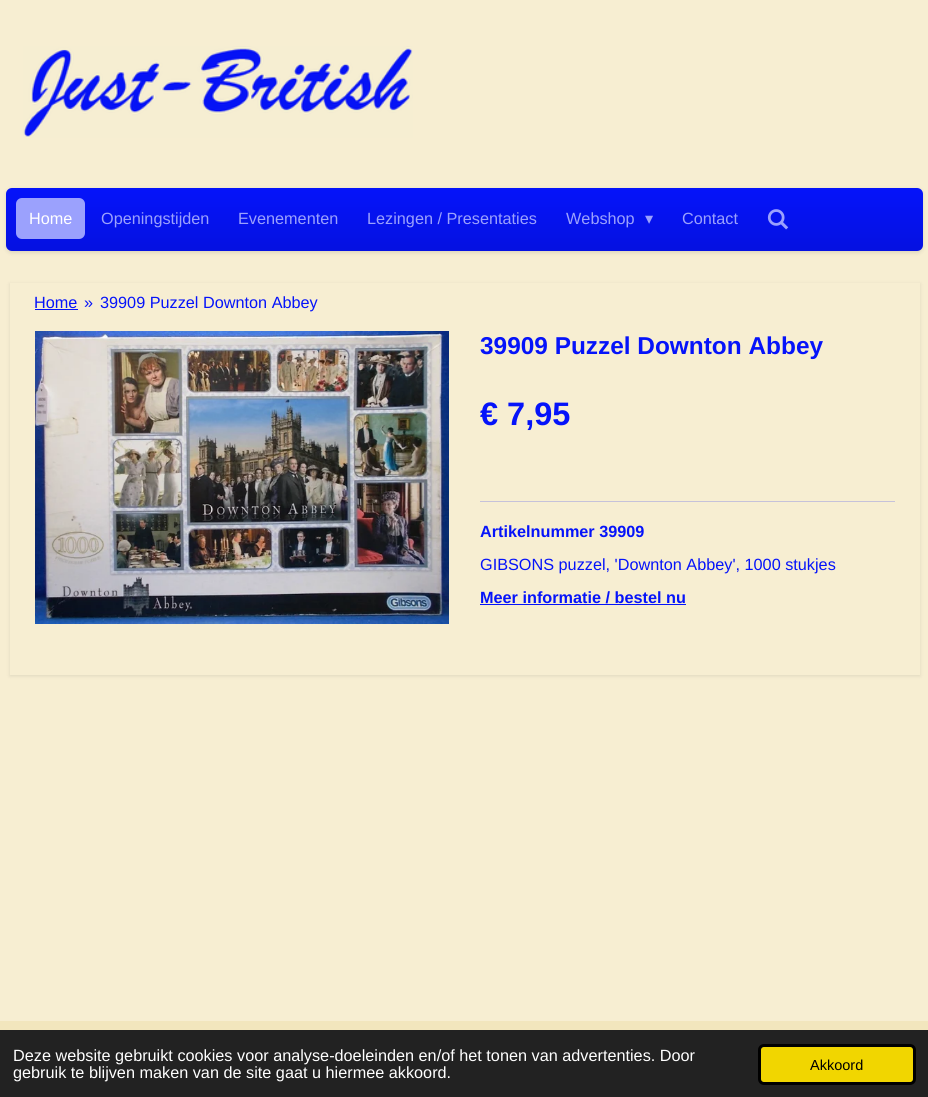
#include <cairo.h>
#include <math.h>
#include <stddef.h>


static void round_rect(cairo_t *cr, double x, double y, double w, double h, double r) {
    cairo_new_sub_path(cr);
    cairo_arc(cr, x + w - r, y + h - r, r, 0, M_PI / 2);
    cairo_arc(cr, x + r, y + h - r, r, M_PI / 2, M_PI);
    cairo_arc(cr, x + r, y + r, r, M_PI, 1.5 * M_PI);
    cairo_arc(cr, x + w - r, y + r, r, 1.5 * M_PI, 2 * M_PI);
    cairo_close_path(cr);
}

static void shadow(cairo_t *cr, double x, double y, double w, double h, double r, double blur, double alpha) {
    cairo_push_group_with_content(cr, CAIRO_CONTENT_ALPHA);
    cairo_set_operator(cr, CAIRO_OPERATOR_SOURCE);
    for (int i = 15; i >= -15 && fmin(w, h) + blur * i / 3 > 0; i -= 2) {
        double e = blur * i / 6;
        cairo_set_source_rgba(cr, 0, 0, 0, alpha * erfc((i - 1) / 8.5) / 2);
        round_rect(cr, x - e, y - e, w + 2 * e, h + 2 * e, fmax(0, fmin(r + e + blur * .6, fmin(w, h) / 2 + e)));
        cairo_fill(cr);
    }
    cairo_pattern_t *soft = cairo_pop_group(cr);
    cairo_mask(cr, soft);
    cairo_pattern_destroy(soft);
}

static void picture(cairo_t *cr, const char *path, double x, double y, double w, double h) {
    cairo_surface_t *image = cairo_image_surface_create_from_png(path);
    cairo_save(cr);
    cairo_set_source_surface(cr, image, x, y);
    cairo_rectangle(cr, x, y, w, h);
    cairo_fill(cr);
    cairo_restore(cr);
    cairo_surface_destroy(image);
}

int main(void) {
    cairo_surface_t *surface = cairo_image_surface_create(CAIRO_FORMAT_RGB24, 928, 1097);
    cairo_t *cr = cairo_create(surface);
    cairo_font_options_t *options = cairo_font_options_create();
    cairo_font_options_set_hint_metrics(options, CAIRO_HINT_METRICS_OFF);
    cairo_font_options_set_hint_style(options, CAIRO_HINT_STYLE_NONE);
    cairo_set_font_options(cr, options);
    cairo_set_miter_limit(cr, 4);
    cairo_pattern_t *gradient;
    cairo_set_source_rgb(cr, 0.965, 0.933, 0.824);
    cairo_paint(cr);
    picture(cr, "img1.png", 23, 46, 390, 92);
    cairo_set_source_rgb(cr, 0, 0, 0);
    shadow(cr, 6, 189, 917, 64, 6, 2, 0.1);
    gradient = cairo_pattern_create_linear(464, 251, 464, 188);
    cairo_pattern_add_color_stop_rgba(gradient, 0, 0.02, 0.067, 0.882, 1);
    cairo_pattern_add_color_stop_rgba(gradient, 1, 0.02, 0.075, 0.98, 1);
    cairo_set_source(cr, gradient);
    cairo_pattern_destroy(gradient);
    round_rect(cr, 6, 188, 917, 63, 6);
    cairo_fill(cr);
    cairo_set_source_rgb(cr, 0.608, 0.631, 0.992);
    round_rect(cr, 16, 198, 69, 41, 6);
    cairo_fill(cr);
    cairo_select_font_face(cr, "Liberation Sans", CAIRO_FONT_SLANT_NORMAL, CAIRO_FONT_WEIGHT_NORMAL);
    cairo_set_font_size(cr, 16.25);
    cairo_set_source_rgb(cr, 1, 1, 1);
    cairo_move_to(cr, 29, 224);
    cairo_show_text(cr, "Home");
    cairo_set_source_rgb(cr, 0.608, 0.631, 0.992);
    cairo_move_to(cr, 101, 224);
    cairo_show_text(cr, "Openingstijden");
    cairo_move_to(cr, 238, 224);
    cairo_show_text(cr, "Evenementen");
    cairo_move_to(cr, 367, 224);
    cairo_show_text(cr, "Lezingen / Presentaties");
    cairo_move_to(cr, 566, 224);
    cairo_show_text(cr, "Webshop");
    cairo_select_font_face(cr, "DejaVu Sans", CAIRO_FONT_SLANT_NORMAL, CAIRO_FONT_WEIGHT_NORMAL);
    cairo_move_to(cr, 645, 224);
    cairo_show_text(cr, "▾");
    cairo_select_font_face(cr, "Liberation Sans", CAIRO_FONT_SLANT_NORMAL, CAIRO_FONT_WEIGHT_NORMAL);
    cairo_move_to(cr, 682, 224);
    cairo_show_text(cr, "Contact");
    picture(cr, "img2.png", 767, 209, 22, 21);
    cairo_save(cr);
    cairo_set_fill_rule(cr, CAIRO_FILL_RULE_EVEN_ODD);
    cairo_new_path(cr);
    cairo_move_to(cr, 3, 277);
    cairo_line_to(cr, 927, 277);
    cairo_line_to(cr, 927, 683);
    cairo_line_to(cr, 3, 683);
    cairo_close_path(cr);
    cairo_move_to(cr, 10, 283);
    cairo_line_to(cr, 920, 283);
    cairo_line_to(cr, 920, 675);
    cairo_line_to(cr, 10, 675);
    cairo_close_path(cr);
    cairo_clip(cr);
    cairo_set_source_rgb(cr, 0, 0, 0);
    shadow(cr, 10, 284, 910, 392, 0, 2, 0.1);
    cairo_restore(cr);
    cairo_set_source_rgb(cr, 0.02, 0.075, 0.98);
    cairo_move_to(cr, 34, 308);
    cairo_show_text(cr, "Home");
    cairo_rectangle(cr, 35, 309, 43, 1);
    cairo_fill(cr);
    cairo_move_to(cr, 84, 308);
    cairo_show_text(cr, "»");
    cairo_move_to(cr, 100, 308);
    cairo_show_text(cr, "39909 Puzzel Downton Abbey");
    picture(cr, "img3.png", 35, 331, 414, 293);
    cairo_select_font_face(cr, "Liberation Sans", CAIRO_FONT_SLANT_NORMAL, CAIRO_FONT_WEIGHT_BOLD);
    cairo_set_font_size(cr, 24.4);
    cairo_move_to(cr, 480, 354);
    cairo_show_text(cr, "39909 Puzzel Downton Abbey");
    cairo_set_font_size(cr, 32.5);
    cairo_move_to(cr, 480, 425);
    cairo_show_text(cr, "€ 7,95");
    cairo_set_source_rgb(cr, 0.776, 0.761, 0.855);
    cairo_rectangle(cr, 480, 501, 415, 1);
    cairo_fill(cr);
    cairo_set_font_size(cr, 16.25);
    cairo_set_source_rgb(cr, 0.02, 0.075, 0.98);
    cairo_move_to(cr, 480, 537);
    cairo_show_text(cr, "Artikelnummer 39909");
    cairo_select_font_face(cr, "Liberation Sans", CAIRO_FONT_SLANT_NORMAL, CAIRO_FONT_WEIGHT_NORMAL);
    cairo_move_to(cr, 480, 570);
    cairo_show_text(cr, "GIBSONS puzzel, 'Downton Abbey', 1000 stukjes");
    cairo_select_font_face(cr, "Liberation Sans", CAIRO_FONT_SLANT_NORMAL, CAIRO_FONT_WEIGHT_BOLD);
    cairo_move_to(cr, 480, 603);
    cairo_show_text(cr, "Meer informatie / bestel nu");
    cairo_rectangle(cr, 480, 604, 206, 1);
    cairo_fill(cr);
    cairo_set_source_rgb(cr, 0.949, 0.902, 0.741);
    cairo_rectangle(cr, 0, 1021, 928, 9);
    cairo_fill(cr);
    cairo_set_source_rgb(cr, 0.133, 0.133, 0.133);
    cairo_rectangle(cr, 0, 1030, 928, 67);
    cairo_fill(cr);
    cairo_select_font_face(cr, "Liberation Sans", CAIRO_FONT_SLANT_NORMAL, CAIRO_FONT_WEIGHT_NORMAL);
    cairo_set_source_rgb(cr, 1, 1, 1);
    cairo_move_to(cr, 13, 1061);
    cairo_show_text(cr, "Deze website gebruikt cookies voor analyse-doeleinden en/of het tonen van advertenties. Door");
    cairo_move_to(cr, 13, 1078);
    cairo_show_text(cr, "gebruik te blijven maken van de site gaat u hiermee akkoord.");
    cairo_set_source_rgb(cr, 0.945, 0.839, 0);
    round_rect(cr, 759.5, 1045.5, 155, 38, 4.5);
    cairo_fill_preserve(cr);
    cairo_set_source_rgb(cr, 0, 0, 0);
    cairo_set_line_width(cr, 3);
    cairo_stroke(cr);
    cairo_set_font_size(cr, 14.5);
    cairo_move_to(cr, 810, 1070);
    cairo_show_text(cr, "Akkoord");
    cairo_surface_write_to_png(surface, "page.png");
    cairo_font_options_destroy(options);
    cairo_destroy(cr);
    cairo_surface_destroy(surface);
    return 0;
}
